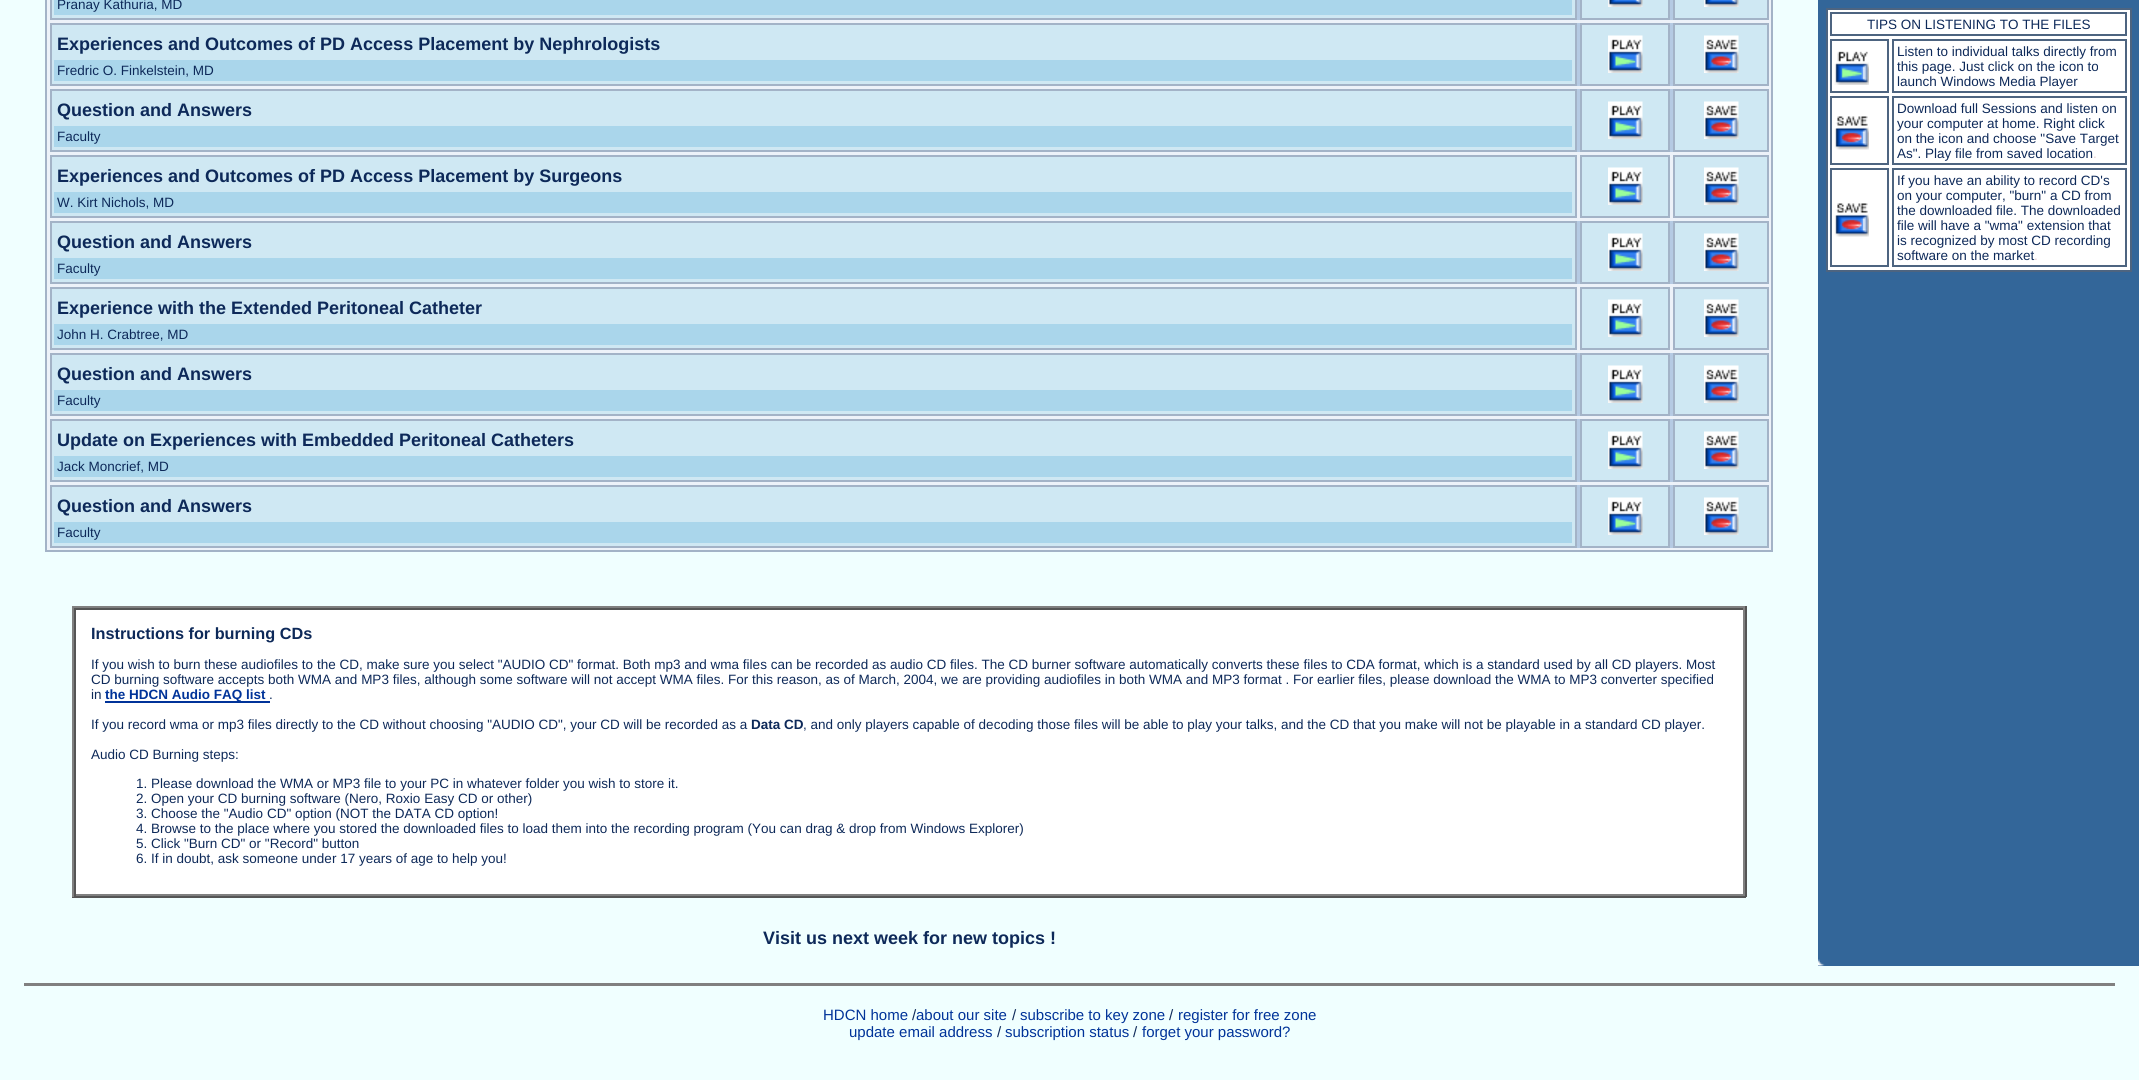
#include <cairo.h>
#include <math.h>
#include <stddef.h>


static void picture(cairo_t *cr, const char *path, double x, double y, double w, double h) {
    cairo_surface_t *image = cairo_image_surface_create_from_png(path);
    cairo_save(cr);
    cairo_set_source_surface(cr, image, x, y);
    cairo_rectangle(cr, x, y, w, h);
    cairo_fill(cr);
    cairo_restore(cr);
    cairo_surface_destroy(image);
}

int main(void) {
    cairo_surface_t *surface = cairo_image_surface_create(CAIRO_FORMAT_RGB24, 2139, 1080);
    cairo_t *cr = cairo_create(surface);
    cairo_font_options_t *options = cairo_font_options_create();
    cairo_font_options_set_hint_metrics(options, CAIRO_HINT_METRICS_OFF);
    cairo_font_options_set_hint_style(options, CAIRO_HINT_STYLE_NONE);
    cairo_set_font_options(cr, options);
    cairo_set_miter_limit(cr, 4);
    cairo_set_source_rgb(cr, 0.941, 1, 1);
    cairo_paint(cr);
    cairo_set_source_rgb(cr, 0.929, 0.949, 0.973);
    cairo_rectangle(cr, 46, -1, 1726, 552);
    cairo_fill_preserve(cr);
    cairo_set_source_rgb(cr, 0.639, 0.702, 0.78);
    cairo_stroke(cr);
    cairo_set_source_rgb(cr, 0.71, 0.792, 0.89);
    cairo_rectangle(cr, 1577, 0, 96, 20);
    cairo_fill(cr);
    cairo_set_source_rgb(cr, 0.812, 0.91, 0.953);
    cairo_rectangle(cr, 51, -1, 1525, 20);
    cairo_fill_preserve(cr);
    cairo_set_source_rgb(cr, 0.639, 0.702, 0.78);
    cairo_stroke(cr);
    cairo_set_source_rgb(cr, 0.667, 0.839, 0.918);
    cairo_rectangle(cr, 54, 0, 1518, 15);
    cairo_fill(cr);
    cairo_select_font_face(cr, "Liberation Sans", CAIRO_FONT_SLANT_NORMAL, CAIRO_FONT_WEIGHT_NORMAL);
    cairo_set_font_size(cr, 13.5);
    cairo_set_source_rgb(cr, 0.051, 0.161, 0.349);
    cairo_move_to(cr, 57, 9);
    cairo_show_text(cr, "Pranay Kathuria, MD");
    cairo_set_source_rgb(cr, 0.812, 0.91, 0.953);
    cairo_rectangle(cr, 1581, -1, 88, 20);
    cairo_fill_preserve(cr);
    cairo_set_source_rgb(cr, 0.639, 0.702, 0.78);
    cairo_stroke(cr);
    picture(cr, "img1.png", 1608, 0, 35, 7);
    cairo_set_source_rgb(cr, 0.812, 0.91, 0.953);
    cairo_rectangle(cr, 1674, -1, 94, 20);
    cairo_fill_preserve(cr);
    cairo_set_source_rgb(cr, 0.639, 0.702, 0.78);
    cairo_stroke(cr);
    picture(cr, "img2.png", 1704, 0, 35, 7);
    cairo_set_source_rgb(cr, 0.71, 0.792, 0.89);
    cairo_rectangle(cr, 1577, 23, 96, 63);
    cairo_fill(cr);
    cairo_set_source_rgb(cr, 0.812, 0.91, 0.953);
    cairo_rectangle(cr, 51, 24, 1525, 61);
    cairo_fill_preserve(cr);
    cairo_set_source_rgb(cr, 0.639, 0.702, 0.78);
    cairo_stroke(cr);
    cairo_select_font_face(cr, "Liberation Sans", CAIRO_FONT_SLANT_NORMAL, CAIRO_FONT_WEIGHT_BOLD);
    cairo_set_font_size(cr, 18);
    cairo_set_source_rgb(cr, 0.051, 0.161, 0.349);
    cairo_move_to(cr, 57, 50);
    cairo_show_text(cr, "Experiences and Outcomes of PD Access Placement by Nephrologists");
    cairo_set_source_rgb(cr, 0.667, 0.839, 0.918);
    cairo_rectangle(cr, 54, 60, 1518, 21);
    cairo_fill(cr);
    cairo_select_font_face(cr, "Liberation Sans", CAIRO_FONT_SLANT_NORMAL, CAIRO_FONT_WEIGHT_NORMAL);
    cairo_set_font_size(cr, 13.5);
    cairo_set_source_rgb(cr, 0.051, 0.161, 0.349);
    cairo_move_to(cr, 57, 75);
    cairo_show_text(cr, "Fredric O. Finkelstein, MD");
    cairo_set_source_rgb(cr, 0.812, 0.91, 0.953);
    cairo_rectangle(cr, 1581, 24, 88, 61);
    cairo_fill_preserve(cr);
    cairo_set_source_rgb(cr, 0.639, 0.702, 0.78);
    cairo_stroke(cr);
    picture(cr, "img3.png", 1608, 35, 35, 38);
    cairo_set_source_rgb(cr, 0.812, 0.91, 0.953);
    cairo_rectangle(cr, 1674, 24, 94, 61);
    cairo_fill_preserve(cr);
    cairo_set_source_rgb(cr, 0.639, 0.702, 0.78);
    cairo_stroke(cr);
    picture(cr, "img4.png", 1704, 35, 35, 38);
    cairo_set_source_rgb(cr, 0.71, 0.792, 0.89);
    cairo_rectangle(cr, 1577, 89, 96, 63);
    cairo_fill(cr);
    cairo_set_source_rgb(cr, 0.812, 0.91, 0.953);
    cairo_rectangle(cr, 51, 90, 1525, 61);
    cairo_fill_preserve(cr);
    cairo_set_source_rgb(cr, 0.639, 0.702, 0.78);
    cairo_stroke(cr);
    cairo_select_font_face(cr, "Liberation Sans", CAIRO_FONT_SLANT_NORMAL, CAIRO_FONT_WEIGHT_BOLD);
    cairo_set_font_size(cr, 18);
    cairo_set_source_rgb(cr, 0.051, 0.161, 0.349);
    cairo_move_to(cr, 57, 116);
    cairo_show_text(cr, "Question and Answers");
    cairo_set_source_rgb(cr, 0.667, 0.839, 0.918);
    cairo_rectangle(cr, 54, 126, 1518, 21);
    cairo_fill(cr);
    cairo_select_font_face(cr, "Liberation Sans", CAIRO_FONT_SLANT_NORMAL, CAIRO_FONT_WEIGHT_NORMAL);
    cairo_set_font_size(cr, 13.5);
    cairo_set_source_rgb(cr, 0.051, 0.161, 0.349);
    cairo_move_to(cr, 57, 141);
    cairo_show_text(cr, "Faculty");
    cairo_set_source_rgb(cr, 0.812, 0.91, 0.953);
    cairo_rectangle(cr, 1581, 90, 88, 61);
    cairo_fill_preserve(cr);
    cairo_set_source_rgb(cr, 0.639, 0.702, 0.78);
    cairo_stroke(cr);
    picture(cr, "img3.png", 1608, 101, 35, 38);
    cairo_set_source_rgb(cr, 0.812, 0.91, 0.953);
    cairo_rectangle(cr, 1674, 90, 94, 61);
    cairo_fill_preserve(cr);
    cairo_set_source_rgb(cr, 0.639, 0.702, 0.78);
    cairo_stroke(cr);
    picture(cr, "img4.png", 1704, 101, 35, 38);
    cairo_set_source_rgb(cr, 0.812, 0.91, 0.953);
    cairo_rectangle(cr, 51, 156, 1525, 61);
    cairo_fill_preserve(cr);
    cairo_set_source_rgb(cr, 0.639, 0.702, 0.78);
    cairo_stroke(cr);
    cairo_select_font_face(cr, "Liberation Sans", CAIRO_FONT_SLANT_NORMAL, CAIRO_FONT_WEIGHT_BOLD);
    cairo_set_font_size(cr, 18);
    cairo_set_source_rgb(cr, 0.051, 0.161, 0.349);
    cairo_move_to(cr, 57, 182);
    cairo_show_text(cr, "Experiences and Outcomes of PD Access Placement by Surgeons");
    cairo_set_source_rgb(cr, 0.667, 0.839, 0.918);
    cairo_rectangle(cr, 54, 192, 1518, 21);
    cairo_fill(cr);
    cairo_select_font_face(cr, "Liberation Sans", CAIRO_FONT_SLANT_NORMAL, CAIRO_FONT_WEIGHT_NORMAL);
    cairo_set_font_size(cr, 13.5);
    cairo_set_source_rgb(cr, 0.051, 0.161, 0.349);
    cairo_move_to(cr, 57, 207);
    cairo_show_text(cr, "W. Kirt Nichols, MD");
    cairo_set_source_rgb(cr, 0.812, 0.91, 0.953);
    cairo_rectangle(cr, 1581, 156, 88, 61);
    cairo_fill_preserve(cr);
    cairo_set_source_rgb(cr, 0.639, 0.702, 0.78);
    cairo_stroke(cr);
    picture(cr, "img3.png", 1608, 167, 35, 38);
    cairo_set_source_rgb(cr, 0.812, 0.91, 0.953);
    cairo_rectangle(cr, 1674, 156, 94, 61);
    cairo_fill_preserve(cr);
    cairo_set_source_rgb(cr, 0.639, 0.702, 0.78);
    cairo_stroke(cr);
    picture(cr, "img4.png", 1704, 167, 35, 38);
    cairo_set_source_rgb(cr, 0.71, 0.792, 0.89);
    cairo_rectangle(cr, 1577, 221, 96, 63);
    cairo_fill(cr);
    cairo_set_source_rgb(cr, 0.812, 0.91, 0.953);
    cairo_rectangle(cr, 51, 222, 1525, 61);
    cairo_fill_preserve(cr);
    cairo_set_source_rgb(cr, 0.639, 0.702, 0.78);
    cairo_stroke(cr);
    cairo_select_font_face(cr, "Liberation Sans", CAIRO_FONT_SLANT_NORMAL, CAIRO_FONT_WEIGHT_BOLD);
    cairo_set_font_size(cr, 18);
    cairo_set_source_rgb(cr, 0.051, 0.161, 0.349);
    cairo_move_to(cr, 57, 248);
    cairo_show_text(cr, "Question and Answers");
    cairo_set_source_rgb(cr, 0.667, 0.839, 0.918);
    cairo_rectangle(cr, 54, 258, 1518, 21);
    cairo_fill(cr);
    cairo_select_font_face(cr, "Liberation Sans", CAIRO_FONT_SLANT_NORMAL, CAIRO_FONT_WEIGHT_NORMAL);
    cairo_set_font_size(cr, 13.5);
    cairo_set_source_rgb(cr, 0.051, 0.161, 0.349);
    cairo_move_to(cr, 57, 273);
    cairo_show_text(cr, "Faculty");
    cairo_set_source_rgb(cr, 0.812, 0.91, 0.953);
    cairo_rectangle(cr, 1581, 222, 88, 61);
    cairo_fill_preserve(cr);
    cairo_set_source_rgb(cr, 0.639, 0.702, 0.78);
    cairo_stroke(cr);
    picture(cr, "img3.png", 1608, 233, 35, 38);
    cairo_set_source_rgb(cr, 0.812, 0.91, 0.953);
    cairo_rectangle(cr, 1674, 222, 94, 61);
    cairo_fill_preserve(cr);
    cairo_set_source_rgb(cr, 0.639, 0.702, 0.78);
    cairo_stroke(cr);
    picture(cr, "img4.png", 1704, 233, 35, 38);
    cairo_set_source_rgb(cr, 0.812, 0.91, 0.953);
    cairo_rectangle(cr, 51, 288, 1525, 61);
    cairo_fill_preserve(cr);
    cairo_set_source_rgb(cr, 0.639, 0.702, 0.78);
    cairo_stroke(cr);
    cairo_select_font_face(cr, "Liberation Sans", CAIRO_FONT_SLANT_NORMAL, CAIRO_FONT_WEIGHT_BOLD);
    cairo_set_font_size(cr, 18);
    cairo_set_source_rgb(cr, 0.051, 0.161, 0.349);
    cairo_move_to(cr, 57, 314);
    cairo_show_text(cr, "Experience with the Extended Peritoneal Catheter");
    cairo_set_source_rgb(cr, 0.667, 0.839, 0.918);
    cairo_rectangle(cr, 54, 324, 1518, 21);
    cairo_fill(cr);
    cairo_select_font_face(cr, "Liberation Sans", CAIRO_FONT_SLANT_NORMAL, CAIRO_FONT_WEIGHT_NORMAL);
    cairo_set_font_size(cr, 13.5);
    cairo_set_source_rgb(cr, 0.051, 0.161, 0.349);
    cairo_move_to(cr, 57, 339);
    cairo_show_text(cr, "John H. Crabtree, MD");
    cairo_set_source_rgb(cr, 0.812, 0.91, 0.953);
    cairo_rectangle(cr, 1581, 288, 88, 61);
    cairo_fill_preserve(cr);
    cairo_set_source_rgb(cr, 0.639, 0.702, 0.78);
    cairo_stroke(cr);
    picture(cr, "img3.png", 1608, 299, 35, 38);
    cairo_set_source_rgb(cr, 0.812, 0.91, 0.953);
    cairo_rectangle(cr, 1674, 288, 94, 61);
    cairo_fill_preserve(cr);
    cairo_set_source_rgb(cr, 0.639, 0.702, 0.78);
    cairo_stroke(cr);
    picture(cr, "img4.png", 1704, 299, 35, 38);
    cairo_set_source_rgb(cr, 0.71, 0.792, 0.89);
    cairo_rectangle(cr, 1577, 353, 96, 63);
    cairo_fill(cr);
    cairo_set_source_rgb(cr, 0.812, 0.91, 0.953);
    cairo_rectangle(cr, 51, 354, 1525, 61);
    cairo_fill_preserve(cr);
    cairo_set_source_rgb(cr, 0.639, 0.702, 0.78);
    cairo_stroke(cr);
    cairo_select_font_face(cr, "Liberation Sans", CAIRO_FONT_SLANT_NORMAL, CAIRO_FONT_WEIGHT_BOLD);
    cairo_set_font_size(cr, 18);
    cairo_set_source_rgb(cr, 0.051, 0.161, 0.349);
    cairo_move_to(cr, 57, 380);
    cairo_show_text(cr, "Question and Answers");
    cairo_set_source_rgb(cr, 0.667, 0.839, 0.918);
    cairo_rectangle(cr, 54, 390, 1518, 21);
    cairo_fill(cr);
    cairo_select_font_face(cr, "Liberation Sans", CAIRO_FONT_SLANT_NORMAL, CAIRO_FONT_WEIGHT_NORMAL);
    cairo_set_font_size(cr, 13.5);
    cairo_set_source_rgb(cr, 0.051, 0.161, 0.349);
    cairo_move_to(cr, 57, 405);
    cairo_show_text(cr, "Faculty");
    cairo_set_source_rgb(cr, 0.812, 0.91, 0.953);
    cairo_rectangle(cr, 1581, 354, 88, 61);
    cairo_fill_preserve(cr);
    cairo_set_source_rgb(cr, 0.639, 0.702, 0.78);
    cairo_stroke(cr);
    picture(cr, "img3.png", 1608, 365, 35, 38);
    cairo_set_source_rgb(cr, 0.812, 0.91, 0.953);
    cairo_rectangle(cr, 1674, 354, 94, 61);
    cairo_fill_preserve(cr);
    cairo_set_source_rgb(cr, 0.639, 0.702, 0.78);
    cairo_stroke(cr);
    picture(cr, "img4.png", 1704, 365, 35, 38);
    cairo_set_source_rgb(cr, 0.71, 0.792, 0.89);
    cairo_rectangle(cr, 1577, 419, 96, 63);
    cairo_fill(cr);
    cairo_set_source_rgb(cr, 0.812, 0.91, 0.953);
    cairo_rectangle(cr, 51, 420, 1525, 61);
    cairo_fill_preserve(cr);
    cairo_set_source_rgb(cr, 0.639, 0.702, 0.78);
    cairo_stroke(cr);
    cairo_select_font_face(cr, "Liberation Sans", CAIRO_FONT_SLANT_NORMAL, CAIRO_FONT_WEIGHT_BOLD);
    cairo_set_font_size(cr, 18);
    cairo_set_source_rgb(cr, 0.051, 0.161, 0.349);
    cairo_move_to(cr, 57, 446);
    cairo_show_text(cr, "Update on Experiences with Embedded Peritoneal Catheters");
    cairo_set_source_rgb(cr, 0.667, 0.839, 0.918);
    cairo_rectangle(cr, 54, 456, 1518, 21);
    cairo_fill(cr);
    cairo_select_font_face(cr, "Liberation Sans", CAIRO_FONT_SLANT_NORMAL, CAIRO_FONT_WEIGHT_NORMAL);
    cairo_set_font_size(cr, 13.5);
    cairo_set_source_rgb(cr, 0.051, 0.161, 0.349);
    cairo_move_to(cr, 57, 471);
    cairo_show_text(cr, "Jack Moncrief, MD");
    cairo_set_source_rgb(cr, 0.812, 0.91, 0.953);
    cairo_rectangle(cr, 1581, 420, 88, 61);
    cairo_fill_preserve(cr);
    cairo_set_source_rgb(cr, 0.639, 0.702, 0.78);
    cairo_stroke(cr);
    picture(cr, "img3.png", 1608, 431, 35, 38);
    cairo_set_source_rgb(cr, 0.812, 0.91, 0.953);
    cairo_rectangle(cr, 1674, 420, 94, 61);
    cairo_fill_preserve(cr);
    cairo_set_source_rgb(cr, 0.639, 0.702, 0.78);
    cairo_stroke(cr);
    picture(cr, "img4.png", 1704, 431, 35, 38);
    cairo_set_source_rgb(cr, 0.71, 0.792, 0.89);
    cairo_rectangle(cr, 1577, 485, 96, 63);
    cairo_fill(cr);
    cairo_set_source_rgb(cr, 0.812, 0.91, 0.953);
    cairo_rectangle(cr, 51, 486, 1525, 61);
    cairo_fill_preserve(cr);
    cairo_set_source_rgb(cr, 0.639, 0.702, 0.78);
    cairo_stroke(cr);
    cairo_select_font_face(cr, "Liberation Sans", CAIRO_FONT_SLANT_NORMAL, CAIRO_FONT_WEIGHT_BOLD);
    cairo_set_font_size(cr, 18);
    cairo_set_source_rgb(cr, 0.051, 0.161, 0.349);
    cairo_move_to(cr, 57, 512);
    cairo_show_text(cr, "Question and Answers");
    cairo_set_source_rgb(cr, 0.667, 0.839, 0.918);
    cairo_rectangle(cr, 54, 522, 1518, 21);
    cairo_fill(cr);
    cairo_select_font_face(cr, "Liberation Sans", CAIRO_FONT_SLANT_NORMAL, CAIRO_FONT_WEIGHT_NORMAL);
    cairo_set_font_size(cr, 13.5);
    cairo_set_source_rgb(cr, 0.051, 0.161, 0.349);
    cairo_move_to(cr, 57, 537);
    cairo_show_text(cr, "Faculty");
    cairo_set_source_rgb(cr, 0.812, 0.91, 0.953);
    cairo_rectangle(cr, 1581, 486, 88, 61);
    cairo_fill_preserve(cr);
    cairo_set_source_rgb(cr, 0.639, 0.702, 0.78);
    cairo_stroke(cr);
    picture(cr, "img3.png", 1608, 497, 35, 38);
    cairo_set_source_rgb(cr, 0.812, 0.91, 0.953);
    cairo_rectangle(cr, 1674, 486, 94, 61);
    cairo_fill_preserve(cr);
    cairo_set_source_rgb(cr, 0.639, 0.702, 0.78);
    cairo_stroke(cr);
    picture(cr, "img4.png", 1704, 497, 35, 38);
    cairo_set_source_rgb(cr, 1, 1, 1);
    cairo_rectangle(cr, 76, 610, 1667, 284);
    cairo_fill(cr);
    cairo_set_source_rgb(cr, 0.502, 0.502, 0.502);
    cairo_rectangle(cr, 72, 606, 1674, 2);
    cairo_fill(cr);
    cairo_set_source_rgb(cr, 0.333, 0.333, 0.333);
    cairo_rectangle(cr, 1745, 606, 2, 291);
    cairo_fill(cr);
    cairo_rectangle(cr, 72, 896, 1674, 2);
    cairo_fill(cr);
    cairo_set_source_rgb(cr, 0.502, 0.502, 0.502);
    cairo_rectangle(cr, 72, 606, 2, 291);
    cairo_fill(cr);
    cairo_set_source_rgb(cr, 0.333, 0.333, 0.333);
    cairo_rectangle(cr, 74, 608, 1671, 2);
    cairo_fill(cr);
    cairo_set_source_rgb(cr, 0.502, 0.502, 0.502);
    cairo_rectangle(cr, 1743, 608, 2, 288);
    cairo_fill(cr);
    cairo_rectangle(cr, 74, 894, 1671, 2);
    cairo_fill(cr);
    cairo_set_source_rgb(cr, 0.333, 0.333, 0.333);
    cairo_rectangle(cr, 74, 608, 2, 288);
    cairo_fill(cr);
    cairo_select_font_face(cr, "Liberation Sans", CAIRO_FONT_SLANT_NORMAL, CAIRO_FONT_WEIGHT_BOLD);
    cairo_set_font_size(cr, 16.25);
    cairo_set_source_rgb(cr, 0.051, 0.161, 0.349);
    cairo_move_to(cr, 91, 639);
    cairo_show_text(cr, "Instructions for burning CDs");
    cairo_select_font_face(cr, "Liberation Sans", CAIRO_FONT_SLANT_NORMAL, CAIRO_FONT_WEIGHT_NORMAL);
    cairo_set_font_size(cr, 13.5);
    cairo_move_to(cr, 91, 669);
    cairo_show_text(cr, "If you wish to burn these audiofiles to the CD, make sure you select \"AUDIO CD\" format. Both mp3 and wma files can be recorded as audio CD files. The CD burner software automatically converts these files to CDA format, which is a standard used by all CD players. Most");
    cairo_move_to(cr, 91, 684);
    cairo_show_text(cr, "CD burning software accepts both WMA and MP3 files, although some software will not accept WMA files. For this reason, as of March, 2004, we are providing audiofiles in both WMA and MP3 format . For earlier files, please download the WMA to MP3 converter specified");
    cairo_move_to(cr, 91, 699);
    cairo_show_text(cr, "in");
    cairo_set_source_rgb(cr, 0, 0.2, 0.6);
    cairo_rectangle(cr, 105, 701, 165, 2);
    cairo_fill(cr);
    cairo_select_font_face(cr, "Liberation Sans", CAIRO_FONT_SLANT_NORMAL, CAIRO_FONT_WEIGHT_BOLD);
    cairo_move_to(cr, 105, 699);
    cairo_show_text(cr, "the HDCN Audio FAQ list");
    cairo_select_font_face(cr, "Liberation Sans", CAIRO_FONT_SLANT_NORMAL, CAIRO_FONT_WEIGHT_NORMAL);
    cairo_set_source_rgb(cr, 0.051, 0.161, 0.349);
    cairo_move_to(cr, 269, 699);
    cairo_show_text(cr, ".");
    cairo_move_to(cr, 91, 729);
    cairo_show_text(cr, "If you record wma or mp3 files directly to the CD without choosing \"AUDIO CD\", your CD will be recorded as a");
    cairo_select_font_face(cr, "Liberation Sans", CAIRO_FONT_SLANT_NORMAL, CAIRO_FONT_WEIGHT_BOLD);
    cairo_move_to(cr, 751, 729);
    cairo_show_text(cr, "Data CD");
    cairo_select_font_face(cr, "Liberation Sans", CAIRO_FONT_SLANT_NORMAL, CAIRO_FONT_WEIGHT_NORMAL);
    cairo_move_to(cr, 803, 729);
    cairo_show_text(cr, ", and only players capable of decoding those files will be able to play your talks, and the CD that you make will not be playable in a standard CD player.");
    cairo_move_to(cr, 91, 759);
    cairo_show_text(cr, "Audio CD Burning steps:");
    cairo_move_to(cr, 136, 788);
    cairo_show_text(cr, "1. Please download the WMA or MP3 file to your PC in whatever folder you wish to store it.");
    cairo_move_to(cr, 136, 803);
    cairo_show_text(cr, "2. Open your CD burning software (Nero, Roxio Easy CD or other)");
    cairo_move_to(cr, 136, 818);
    cairo_show_text(cr, "3. Choose the \"Audio CD\" option (NOT the DATA CD option!");
    cairo_move_to(cr, 136, 833);
    cairo_show_text(cr, "4. Browse to the place where you stored the downloaded files to load them into the recording program (You can drag & drop from Windows Explorer)");
    cairo_move_to(cr, 136, 848);
    cairo_show_text(cr, "5. Click \"Burn CD\" or \"Record\" button");
    cairo_move_to(cr, 136, 863);
    cairo_show_text(cr, "6. If in doubt, ask someone under 17 years of age to help you!");
    cairo_select_font_face(cr, "Liberation Sans", CAIRO_FONT_SLANT_NORMAL, CAIRO_FONT_WEIGHT_BOLD);
    cairo_set_font_size(cr, 18);
    cairo_move_to(cr, 763, 944);
    cairo_show_text(cr, "Visit us next week for new topics !");
    cairo_set_source_rgb(cr, 0.2, 0.4, 0.6);
    cairo_rectangle(cr, 1818, 0, 321, 966);
    cairo_fill(cr);
    cairo_set_source_rgb(cr, 1, 1, 1);
    cairo_rectangle(cr, 1827, 9, 304, 262);
    cairo_fill_preserve(cr);
    cairo_set_source_rgb(cr, 0.302, 0.392, 0.502);
    cairo_stroke(cr);
    cairo_rectangle(cr, 1831, 13, 295, 22);
    cairo_stroke(cr);
    cairo_select_font_face(cr, "Liberation Sans", CAIRO_FONT_SLANT_NORMAL, CAIRO_FONT_WEIGHT_NORMAL);
    cairo_set_font_size(cr, 13.5);
    cairo_set_source_rgb(cr, 0.051, 0.161, 0.349);
    cairo_move_to(cr, 1867, 29);
    cairo_show_text(cr, "TIPS ON LISTENING TO THE FILES");
    cairo_rectangle(cr, 1831, 40, 57, 52);
    cairo_set_source_rgb(cr, 0.302, 0.392, 0.502);
    cairo_stroke(cr);
    picture(cr, "img5.png", 1834, 51, 35, 34);
    cairo_rectangle(cr, 1893, 40, 233, 52);
    cairo_stroke(cr);
    cairo_set_source_rgb(cr, 0.051, 0.161, 0.349);
    cairo_move_to(cr, 1897, 56);
    cairo_show_text(cr, "Listen to individual talks directly from");
    cairo_move_to(cr, 1897, 71);
    cairo_show_text(cr, "this page. Just click on the icon to");
    cairo_move_to(cr, 1897, 86);
    cairo_show_text(cr, "launch Windows Media Player");
    cairo_rectangle(cr, 1831, 97, 57, 67);
    cairo_set_source_rgb(cr, 0.302, 0.392, 0.502);
    cairo_stroke(cr);
    picture(cr, "img6.png", 1834, 116, 35, 34);
    cairo_rectangle(cr, 1893, 97, 233, 67);
    cairo_stroke(cr);
    cairo_set_source_rgb(cr, 0.051, 0.161, 0.349);
    cairo_move_to(cr, 1897, 113);
    cairo_show_text(cr, "Download full Sessions and listen on");
    cairo_move_to(cr, 1897, 128);
    cairo_show_text(cr, "your computer at home. Right click");
    cairo_move_to(cr, 1897, 143);
    cairo_show_text(cr, "on the icon and choose \"Save Target");
    cairo_move_to(cr, 1897, 158);
    cairo_show_text(cr, "As\". Play file from saved location");
    cairo_set_source_rgb(cr, 0.894, 0.796, 0.796);
    cairo_move_to(cr, 2093, 158);
    cairo_show_text(cr, ".");
    cairo_rectangle(cr, 1831, 169, 57, 97);
    cairo_set_source_rgb(cr, 0.302, 0.392, 0.502);
    cairo_stroke(cr);
    picture(cr, "img6.png", 1834, 203, 35, 34);
    cairo_rectangle(cr, 1893, 169, 233, 97);
    cairo_stroke(cr);
    cairo_set_source_rgb(cr, 0.051, 0.161, 0.349);
    cairo_move_to(cr, 1897, 185);
    cairo_show_text(cr, "If you have an ability to record CD's");
    cairo_move_to(cr, 1897, 200);
    cairo_show_text(cr, "on your computer, \"burn\" a CD from");
    cairo_move_to(cr, 1897, 215);
    cairo_show_text(cr, "the downloaded file. The downloaded");
    cairo_move_to(cr, 1897, 230);
    cairo_show_text(cr, "file will have a \"wma\" extension that");
    cairo_move_to(cr, 1897, 245);
    cairo_show_text(cr, "is recognized by most CD recording");
    cairo_move_to(cr, 1897, 260);
    cairo_show_text(cr, "software on the market");
    cairo_set_source_rgb(cr, 0.894, 0.796, 0.796);
    cairo_move_to(cr, 2034, 260);
    cairo_show_text(cr, ".");
    picture(cr, "img7.png", 1818, 959, 7, 7);
    cairo_set_source_rgb(cr, 0.502, 0.502, 0.502);
    cairo_rectangle(cr, 24, 983, 2091, 3);
    cairo_fill(cr);
    cairo_set_font_size(cr, 15);
    cairo_set_source_rgb(cr, 0, 0.2, 0.6);
    cairo_move_to(cr, 823, 1020);
    cairo_show_text(cr, "HDCN home");
    cairo_set_source_rgb(cr, 0.051, 0.161, 0.349);
    cairo_move_to(cr, 912, 1020);
    cairo_show_text(cr, "/");
    cairo_set_source_rgb(cr, 0, 0.2, 0.6);
    cairo_move_to(cr, 916, 1020);
    cairo_show_text(cr, "about our site");
    cairo_set_source_rgb(cr, 0.051, 0.161, 0.349);
    cairo_move_to(cr, 1012, 1020);
    cairo_show_text(cr, "/");
    cairo_set_source_rgb(cr, 0, 0.2, 0.6);
    cairo_move_to(cr, 1020, 1020);
    cairo_show_text(cr, "subscribe to key zone");
    cairo_set_source_rgb(cr, 0.051, 0.161, 0.349);
    cairo_move_to(cr, 1169, 1020);
    cairo_show_text(cr, "/");
    cairo_set_source_rgb(cr, 0, 0.2, 0.6);
    cairo_move_to(cr, 1178, 1020);
    cairo_show_text(cr, "register for free zone");
    cairo_move_to(cr, 849, 1037);
    cairo_show_text(cr, "update email address");
    cairo_set_source_rgb(cr, 0.051, 0.161, 0.349);
    cairo_move_to(cr, 997, 1037);
    cairo_show_text(cr, "/");
    cairo_set_source_rgb(cr, 0, 0.2, 0.6);
    cairo_move_to(cr, 1005, 1037);
    cairo_show_text(cr, "subscription status");
    cairo_set_source_rgb(cr, 0.051, 0.161, 0.349);
    cairo_move_to(cr, 1133, 1037);
    cairo_show_text(cr, "/");
    cairo_set_source_rgb(cr, 0, 0.2, 0.6);
    cairo_move_to(cr, 1142, 1037);
    cairo_show_text(cr, "forget your password?");
    cairo_surface_write_to_png(surface, "page.png");
    cairo_font_options_destroy(options);
    cairo_destroy(cr);
    cairo_surface_destroy(surface);
    return 0;
}
